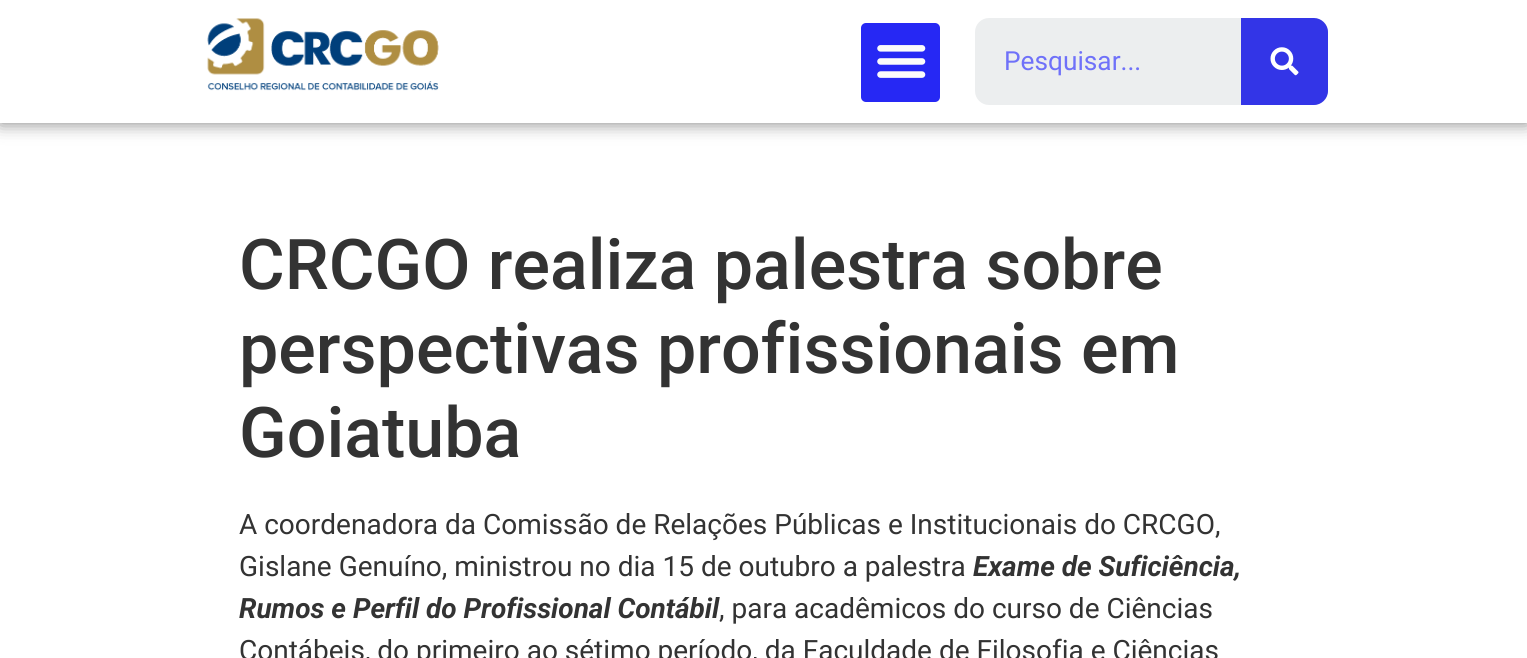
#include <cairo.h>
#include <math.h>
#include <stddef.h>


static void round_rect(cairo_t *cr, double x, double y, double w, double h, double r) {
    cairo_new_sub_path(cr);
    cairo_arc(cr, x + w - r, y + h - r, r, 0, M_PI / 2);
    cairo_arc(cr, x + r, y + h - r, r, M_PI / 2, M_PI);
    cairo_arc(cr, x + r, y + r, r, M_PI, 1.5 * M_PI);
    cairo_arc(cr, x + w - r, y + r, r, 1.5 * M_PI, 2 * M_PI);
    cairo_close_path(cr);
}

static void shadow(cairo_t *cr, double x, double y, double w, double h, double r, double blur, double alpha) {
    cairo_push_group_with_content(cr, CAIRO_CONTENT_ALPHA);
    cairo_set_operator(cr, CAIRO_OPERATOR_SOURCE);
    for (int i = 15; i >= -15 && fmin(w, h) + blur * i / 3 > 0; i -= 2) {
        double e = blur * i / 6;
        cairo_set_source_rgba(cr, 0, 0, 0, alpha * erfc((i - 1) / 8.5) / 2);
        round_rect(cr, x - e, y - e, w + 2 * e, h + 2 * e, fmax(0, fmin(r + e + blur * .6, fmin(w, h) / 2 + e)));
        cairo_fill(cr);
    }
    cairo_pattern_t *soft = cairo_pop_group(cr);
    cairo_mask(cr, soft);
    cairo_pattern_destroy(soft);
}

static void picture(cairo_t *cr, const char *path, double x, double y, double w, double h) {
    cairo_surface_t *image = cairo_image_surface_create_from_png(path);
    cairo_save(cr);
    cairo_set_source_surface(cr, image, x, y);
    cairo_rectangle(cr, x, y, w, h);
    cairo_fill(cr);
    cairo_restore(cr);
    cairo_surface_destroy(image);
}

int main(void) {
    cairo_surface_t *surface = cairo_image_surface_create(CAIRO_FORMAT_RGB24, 1527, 658);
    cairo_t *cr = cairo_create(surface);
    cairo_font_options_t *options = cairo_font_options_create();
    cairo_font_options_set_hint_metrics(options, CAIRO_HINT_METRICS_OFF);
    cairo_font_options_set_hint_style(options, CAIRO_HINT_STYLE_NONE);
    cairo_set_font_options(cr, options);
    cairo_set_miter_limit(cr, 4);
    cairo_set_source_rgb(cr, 1, 1, 1);
    cairo_paint(cr);
    cairo_set_source_rgb(cr, 0, 0, 0);
    shadow(cr, 0, 0, 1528, 123, 0, 9, 0.5);
    cairo_set_source_rgb(cr, 1, 1, 1);
    cairo_rectangle(cr, 0, 0, 1527, 123);
    cairo_fill(cr);
    picture(cr, "img1.png", 207, 18, 232, 73);
    cairo_set_source_rgb(cr, 0.149, 0.157, 0.957);
    round_rect(cr, 861, 23, 79, 79, 5);
    cairo_fill(cr);
    picture(cr, "img2.png", 877, 45, 49, 33);
    cairo_set_source_rgb(cr, 0.925, 0.933, 0.937);
    round_rect(cr, 975, 18, 353, 87, 14);
    cairo_fill(cr);
    cairo_select_font_face(cr, "Roboto", CAIRO_FONT_SLANT_NORMAL, CAIRO_FONT_WEIGHT_NORMAL);
    cairo_set_font_size(cr, 26.25);
    cairo_set_source_rgb(cr, 0.435, 0.443, 0.976);
    cairo_move_to(cr, 1004, 70);
    cairo_show_text(cr, "Pesquisar...");
    cairo_set_source_rgb(cr, 0.2, 0.208, 0.906);
    cairo_new_path(cr);
    cairo_move_to(cr, 1241, 18);
    cairo_line_to(cr, 1314, 18);
    cairo_curve_to(cr, 1321.5, 18, 1328, 24.5, 1328, 32);
    cairo_line_to(cr, 1328, 91);
    cairo_curve_to(cr, 1328, 98.5, 1321.5, 105, 1314, 105);
    cairo_line_to(cr, 1241, 105);
    cairo_close_path(cr);
    cairo_fill(cr);
    picture(cr, "img3.png", 1270, 47, 29, 29);
    cairo_select_font_face(cr, "Roboto Medium", CAIRO_FONT_SLANT_NORMAL, CAIRO_FONT_WEIGHT_NORMAL);
    cairo_set_font_size(cr, 70);
    cairo_set_source_rgb(cr, 0.2, 0.2, 0.2);
    cairo_move_to(cr, 239, 289);
    cairo_show_text(cr, "CRCGO realiza palestra sobre");
    cairo_move_to(cr, 239, 373);
    cairo_show_text(cr, "perspectivas profissionais em");
    cairo_move_to(cr, 239, 457);
    cairo_show_text(cr, "Goiatuba");
    cairo_select_font_face(cr, "Roboto", CAIRO_FONT_SLANT_NORMAL, CAIRO_FONT_WEIGHT_NORMAL);
    cairo_set_font_size(cr, 28);
    cairo_move_to(cr, 239, 534);
    cairo_show_text(cr, "A coordenadora da Comissão de Relações Públicas e Institucionais do CRCGO,");
    cairo_move_to(cr, 239, 576);
    cairo_show_text(cr, "Gislane Genuíno, ministrou no dia 15 de outubro a palestra");
    cairo_select_font_face(cr, "Roboto", CAIRO_FONT_SLANT_ITALIC, CAIRO_FONT_WEIGHT_BOLD);
    cairo_move_to(cr, 973, 576);
    cairo_show_text(cr, "Exame de Suficiência,");
    cairo_move_to(cr, 239, 618);
    cairo_show_text(cr, "Rumos e Perfil do Profissional Contábil");
    cairo_select_font_face(cr, "Roboto", CAIRO_FONT_SLANT_NORMAL, CAIRO_FONT_WEIGHT_NORMAL);
    cairo_move_to(cr, 719, 618);
    cairo_show_text(cr, ", para acadêmicos do curso de Ciências");
    cairo_move_to(cr, 239, 660);
    cairo_show_text(cr, "Contábeis, do primeiro ao sétimo período, da Faculdade de Filosofia e Ciências");
    cairo_surface_write_to_png(surface, "page.png");
    cairo_font_options_destroy(options);
    cairo_destroy(cr);
    cairo_surface_destroy(surface);
    return 0;
}
